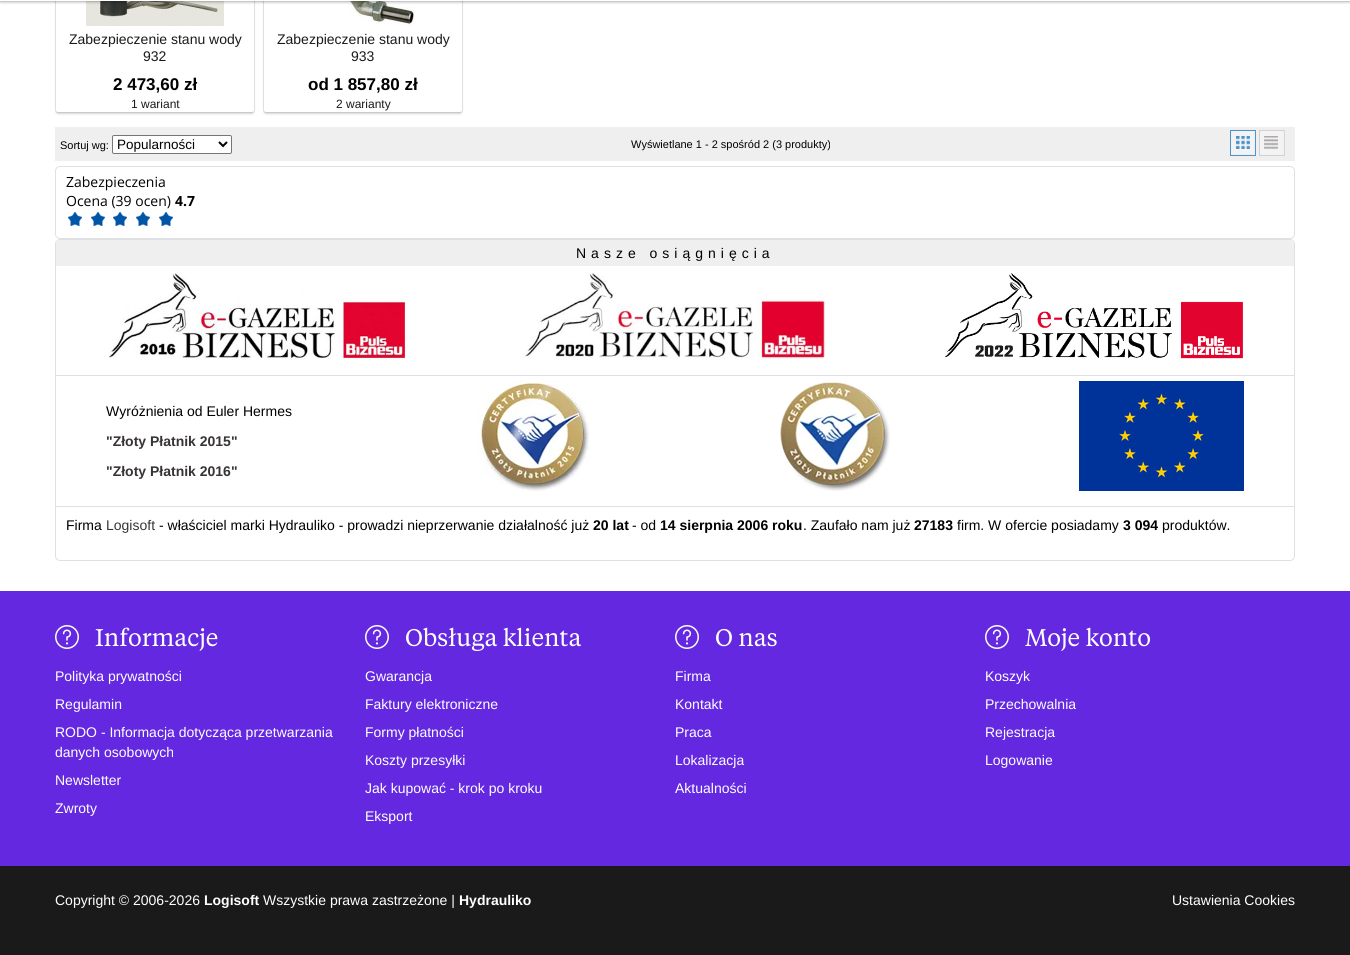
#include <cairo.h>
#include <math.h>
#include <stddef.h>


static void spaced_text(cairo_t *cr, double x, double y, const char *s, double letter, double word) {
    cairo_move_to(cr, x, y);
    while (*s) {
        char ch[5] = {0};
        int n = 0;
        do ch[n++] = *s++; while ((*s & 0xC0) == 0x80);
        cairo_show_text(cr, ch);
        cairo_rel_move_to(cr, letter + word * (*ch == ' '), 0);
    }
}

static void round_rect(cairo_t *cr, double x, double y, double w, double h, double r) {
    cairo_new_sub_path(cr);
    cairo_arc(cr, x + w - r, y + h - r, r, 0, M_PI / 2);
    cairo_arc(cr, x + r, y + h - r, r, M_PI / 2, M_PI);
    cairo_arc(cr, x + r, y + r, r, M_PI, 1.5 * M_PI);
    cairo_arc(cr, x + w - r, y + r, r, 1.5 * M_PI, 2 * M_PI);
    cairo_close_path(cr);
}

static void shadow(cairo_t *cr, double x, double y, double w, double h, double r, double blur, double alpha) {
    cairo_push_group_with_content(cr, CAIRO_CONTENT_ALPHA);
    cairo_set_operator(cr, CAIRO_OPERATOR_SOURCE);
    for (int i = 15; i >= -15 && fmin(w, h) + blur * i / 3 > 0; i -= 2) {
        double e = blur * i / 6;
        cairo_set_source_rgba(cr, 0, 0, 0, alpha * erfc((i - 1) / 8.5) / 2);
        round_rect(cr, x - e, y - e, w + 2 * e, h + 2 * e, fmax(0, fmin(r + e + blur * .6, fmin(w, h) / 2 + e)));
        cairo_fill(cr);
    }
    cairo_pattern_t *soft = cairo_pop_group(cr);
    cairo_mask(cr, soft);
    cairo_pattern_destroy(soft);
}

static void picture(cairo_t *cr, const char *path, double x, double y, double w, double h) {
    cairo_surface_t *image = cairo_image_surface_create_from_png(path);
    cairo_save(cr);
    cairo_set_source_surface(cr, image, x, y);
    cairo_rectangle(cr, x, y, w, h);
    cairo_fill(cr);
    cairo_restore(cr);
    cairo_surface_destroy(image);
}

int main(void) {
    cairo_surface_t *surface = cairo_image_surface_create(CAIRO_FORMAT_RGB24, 1350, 955);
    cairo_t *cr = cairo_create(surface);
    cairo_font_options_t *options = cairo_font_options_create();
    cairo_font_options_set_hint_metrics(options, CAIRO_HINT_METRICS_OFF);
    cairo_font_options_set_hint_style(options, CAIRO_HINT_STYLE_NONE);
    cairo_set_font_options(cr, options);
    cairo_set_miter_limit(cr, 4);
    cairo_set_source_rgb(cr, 1, 1, 1);
    cairo_paint(cr);
    round_rect(cr, 55.5, -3.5, 199, 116, 2.5);
    cairo_set_source_rgb(cr, 0.922, 0.922, 0.922);
    cairo_set_line_width(cr, 1);
    cairo_stroke(cr);
    cairo_set_source_rgb(cr, 0, 0, 0);
    shadow(cr, 56, -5, 198, 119, 2, 1, 0.16);
    cairo_set_source_rgb(cr, 1, 1, 1);
    round_rect(cr, 56, -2, 198, 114, 2);
    cairo_fill(cr);
    picture(cr, "img1.png", 86, 1, 138, 25);
    round_rect(cr, 263.5, -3.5, 199, 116, 2.5);
    cairo_set_source_rgb(cr, 0.922, 0.922, 0.922);
    cairo_stroke(cr);
    cairo_set_source_rgb(cr, 0, 0, 0);
    shadow(cr, 264, -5, 198, 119, 2, 1, 0.16);
    cairo_set_source_rgb(cr, 1, 1, 1);
    round_rect(cr, 264, -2, 198, 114, 2);
    cairo_fill(cr);
    picture(cr, "img2.png", 347, 1, 68, 25);
    cairo_rectangle(cr, -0.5, -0.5, 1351, 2);
    cairo_set_source_rgba(cr, 0, 0, 0, 0.08);
    cairo_stroke(cr);
    cairo_set_source_rgb(cr, 0, 0, 0);
    shadow(cr, 0, -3, 1350, 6, 0, 1, 0.16);
    cairo_set_source_rgb(cr, 1, 1, 1);
    cairo_rectangle(cr, 0, 0, 1350, 1);
    cairo_fill(cr);
    cairo_select_font_face(cr, "Liberation Sans", CAIRO_FONT_SLANT_NORMAL, CAIRO_FONT_WEIGHT_NORMAL);
    cairo_set_font_size(cr, 14);
    cairo_set_source_rgb(cr, 0.102, 0.102, 0.102);
    cairo_move_to(cr, 69, 44);
    cairo_show_text(cr, "Zabezpieczenie stanu wody");
    cairo_move_to(cr, 143, 61);
    cairo_show_text(cr, "932");
    cairo_select_font_face(cr, "Liberation Sans", CAIRO_FONT_SLANT_NORMAL, CAIRO_FONT_WEIGHT_BOLD);
    cairo_set_font_size(cr, 17);
    cairo_set_source_rgb(cr, 0, 0, 0);
    cairo_move_to(cr, 113, 90);
    cairo_show_text(cr, "2 473,60 zł");
    cairo_select_font_face(cr, "Liberation Sans", CAIRO_FONT_SLANT_NORMAL, CAIRO_FONT_WEIGHT_NORMAL);
    cairo_set_font_size(cr, 12);
    cairo_set_source_rgb(cr, 0.102, 0.102, 0.102);
    cairo_move_to(cr, 131, 108);
    cairo_show_text(cr, "1 wariant");
    cairo_set_font_size(cr, 14);
    cairo_move_to(cr, 277, 44);
    cairo_show_text(cr, "Zabezpieczenie stanu wody");
    cairo_move_to(cr, 351, 61);
    cairo_show_text(cr, "933");
    cairo_select_font_face(cr, "Liberation Sans", CAIRO_FONT_SLANT_NORMAL, CAIRO_FONT_WEIGHT_BOLD);
    cairo_set_font_size(cr, 17);
    cairo_set_source_rgb(cr, 0, 0, 0);
    cairo_move_to(cr, 308, 90);
    cairo_show_text(cr, "od 1 857,80 zł");
    cairo_select_font_face(cr, "Liberation Sans", CAIRO_FONT_SLANT_NORMAL, CAIRO_FONT_WEIGHT_NORMAL);
    cairo_set_font_size(cr, 12);
    cairo_set_source_rgb(cr, 0.102, 0.102, 0.102);
    cairo_move_to(cr, 336, 108);
    cairo_show_text(cr, "2 warianty");
    cairo_set_source_rgb(cr, 0.937, 0.937, 0.937);
    cairo_rectangle(cr, 55, 127, 1240, 34);
    cairo_fill(cr);
    cairo_set_font_size(cr, 11);
    cairo_set_source_rgb(cr, 0, 0, 0);
    cairo_move_to(cr, 60, 149);
    cairo_show_text(cr, "Sortuj wg:");
    cairo_set_source_rgb(cr, 1, 1, 1);
    round_rect(cr, 112.5, 135.5, 119, 18, 1.5);
    cairo_fill_preserve(cr);
    cairo_set_source_rgb(cr, 0.463, 0.463, 0.463);
    cairo_stroke(cr);
    cairo_new_path(cr);
    cairo_move_to(cr, 219, 142);
    cairo_line_to(cr, 223, 146);
    cairo_line_to(cr, 227, 142);
    cairo_set_source_rgb(cr, 0, 0, 0);
    cairo_set_line_width(cr, 2);
    cairo_stroke(cr);
    cairo_set_font_size(cr, 13.5);
    cairo_move_to(cr, 117, 149);
    cairo_show_text(cr, "Popularności");
    cairo_set_font_size(cr, 11);
    cairo_move_to(cr, 631, 148);
    cairo_show_text(cr, "Wyświetlane 1 - 2 spośród 2 (3 produkty)");
    picture(cr, "img3.png", 1230, 130, 26, 26);
    picture(cr, "img4.png", 1259, 130, 26, 26);
    round_rect(cr, 55.5, 166.5, 1239, 72, 4.5);
    cairo_set_source_rgb(cr, 0.871, 0.878, 0.89);
    cairo_set_line_width(cr, 1);
    cairo_stroke(cr);
    cairo_select_font_face(cr, "Open Sans", CAIRO_FONT_SLANT_NORMAL, CAIRO_FONT_WEIGHT_NORMAL);
    cairo_set_font_size(cr, 14);
    cairo_set_source_rgb(cr, 0, 0, 0);
    cairo_move_to(cr, 66, 187);
    cairo_show_text(cr, "Zabezpieczenia");
    cairo_move_to(cr, 66, 206);
    cairo_show_text(cr, "Ocena (39 ocen)");
    cairo_select_font_face(cr, "Open Sans", CAIRO_FONT_SLANT_NORMAL, CAIRO_FONT_WEIGHT_BOLD);
    cairo_move_to(cr, 175, 206);
    cairo_show_text(cr, "4.7");
    picture(cr, "img5.png", 68, 212, 14, 14);
    picture(cr, "img5.png", 91, 212, 14, 14);
    picture(cr, "img5.png", 113, 212, 14, 14);
    picture(cr, "img5.png", 136, 212, 14, 14);
    picture(cr, "img5.png", 159, 212, 14, 14);
    round_rect(cr, 55.5, 239.5, 1239, 321, 4.5);
    cairo_set_source_rgb(cr, 0.871, 0.878, 0.89);
    cairo_stroke(cr);
    cairo_set_source_rgb(cr, 0.937, 0.937, 0.937);
    cairo_rectangle(cr, 56, 240, 1238, 26);
    cairo_fill(cr);
    cairo_select_font_face(cr, "Liberation Sans", CAIRO_FONT_SLANT_NORMAL, CAIRO_FONT_WEIGHT_NORMAL);
    cairo_set_source_rgb(cr, 0, 0, 0);
    spaced_text(cr, 576, 258, "Nasze osiągnięcia", 5, 0);
    cairo_set_source_rgb(cr, 0.871, 0.878, 0.89);
    cairo_rectangle(cr, 56, 375, 1238, 1);
    cairo_fill(cr);
    picture(cr, "img6.png", 109, 273, 297, 87);
    picture(cr, "img7.png", 525, 272, 300, 87);
    picture(cr, "img8.png", 945, 273, 298, 86);
    cairo_rectangle(cr, 56, 506, 1238, 1);
    cairo_fill(cr);
    cairo_set_source_rgb(cr, 0, 0, 0);
    cairo_move_to(cr, 106, 416);
    cairo_show_text(cr, "Wyróżnienia od Euler Hermes");
    cairo_select_font_face(cr, "Liberation Sans", CAIRO_FONT_SLANT_NORMAL, CAIRO_FONT_WEIGHT_BOLD);
    cairo_set_source_rgb(cr, 0.22, 0.204, 0.208);
    cairo_move_to(cr, 106, 446);
    cairo_show_text(cr, "\"Złoty Płatnik 2015\"");
    cairo_move_to(cr, 106, 476);
    cairo_show_text(cr, "\"Złoty Płatnik 2016\"");
    picture(cr, "img9.png", 478, 381, 112, 110);
    picture(cr, "img10.png", 780, 382, 110, 109);
    picture(cr, "img11.png", 1079, 381, 165, 110);
    cairo_select_font_face(cr, "Liberation Sans", CAIRO_FONT_SLANT_NORMAL, CAIRO_FONT_WEIGHT_NORMAL);
    cairo_set_source_rgb(cr, 0, 0, 0);
    cairo_move_to(cr, 66, 530);
    cairo_show_text(cr, "Firma");
    cairo_set_source_rgb(cr, 0.22, 0.204, 0.208);
    cairo_move_to(cr, 106, 530);
    cairo_show_text(cr, "Logisoft");
    cairo_set_source_rgb(cr, 0, 0, 0);
    cairo_move_to(cr, 159, 530);
    cairo_show_text(cr, "- właściciel marki Hydrauliko - prowadzi nieprzerwanie działalność już");
    cairo_select_font_face(cr, "Liberation Sans", CAIRO_FONT_SLANT_NORMAL, CAIRO_FONT_WEIGHT_BOLD);
    cairo_move_to(cr, 593, 530);
    cairo_show_text(cr, "20 lat");
    cairo_select_font_face(cr, "Liberation Sans", CAIRO_FONT_SLANT_NORMAL, CAIRO_FONT_WEIGHT_NORMAL);
    cairo_move_to(cr, 632, 530);
    cairo_show_text(cr, "- od");
    cairo_select_font_face(cr, "Liberation Sans", CAIRO_FONT_SLANT_NORMAL, CAIRO_FONT_WEIGHT_BOLD);
    cairo_move_to(cr, 660, 530);
    cairo_show_text(cr, "14 sierpnia 2006 roku");
    cairo_select_font_face(cr, "Liberation Sans", CAIRO_FONT_SLANT_NORMAL, CAIRO_FONT_WEIGHT_NORMAL);
    cairo_move_to(cr, 803, 530);
    cairo_show_text(cr, ". Zaufało nam już");
    cairo_select_font_face(cr, "Liberation Sans", CAIRO_FONT_SLANT_NORMAL, CAIRO_FONT_WEIGHT_BOLD);
    cairo_move_to(cr, 914, 530);
    cairo_show_text(cr, "27183");
    cairo_select_font_face(cr, "Liberation Sans", CAIRO_FONT_SLANT_NORMAL, CAIRO_FONT_WEIGHT_NORMAL);
    cairo_move_to(cr, 957, 530);
    cairo_show_text(cr, "firm. W ofercie posiadamy");
    cairo_select_font_face(cr, "Liberation Sans", CAIRO_FONT_SLANT_NORMAL, CAIRO_FONT_WEIGHT_BOLD);
    cairo_move_to(cr, 1123, 530);
    cairo_show_text(cr, "3 094");
    cairo_select_font_face(cr, "Liberation Sans", CAIRO_FONT_SLANT_NORMAL, CAIRO_FONT_WEIGHT_NORMAL);
    cairo_move_to(cr, 1162, 530);
    cairo_show_text(cr, "produktów.");
    cairo_set_source_rgb(cr, 0.102, 0.102, 0.102);
    cairo_rectangle(cr, 0, 866, 1350, 89);
    cairo_fill(cr);
    cairo_set_source_rgb(cr, 0.388, 0.157, 0.878);
    cairo_rectangle(cr, 0, 591, 1350, 275);
    cairo_fill(cr);
    picture(cr, "img12.png", 55, 625, 24, 24);
    cairo_select_font_face(cr, "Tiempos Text", CAIRO_FONT_SLANT_NORMAL, CAIRO_FONT_WEIGHT_NORMAL);
    cairo_set_font_size(cr, 24);
    cairo_set_source_rgb(cr, 1, 1, 1);
    cairo_move_to(cr, 95, 646);
    cairo_show_text(cr, "Informacje");
    cairo_select_font_face(cr, "Liberation Sans", CAIRO_FONT_SLANT_NORMAL, CAIRO_FONT_WEIGHT_NORMAL);
    cairo_set_font_size(cr, 14);
    cairo_move_to(cr, 55, 681);
    cairo_show_text(cr, "Polityka prywatności");
    cairo_move_to(cr, 55, 709);
    cairo_show_text(cr, "Regulamin");
    cairo_move_to(cr, 55, 737);
    cairo_show_text(cr, "RODO - Informacja dotycząca przetwarzania");
    cairo_move_to(cr, 55, 757);
    cairo_show_text(cr, "danych osobowych");
    cairo_move_to(cr, 55, 785);
    cairo_show_text(cr, "Newsletter");
    cairo_move_to(cr, 55, 813);
    cairo_show_text(cr, "Zwroty");
    picture(cr, "img12.png", 365, 625, 24, 24);
    cairo_select_font_face(cr, "Tiempos Text", CAIRO_FONT_SLANT_NORMAL, CAIRO_FONT_WEIGHT_NORMAL);
    cairo_set_font_size(cr, 24);
    cairo_move_to(cr, 405, 646);
    cairo_show_text(cr, "Obsługa klienta");
    cairo_select_font_face(cr, "Liberation Sans", CAIRO_FONT_SLANT_NORMAL, CAIRO_FONT_WEIGHT_NORMAL);
    cairo_set_font_size(cr, 14);
    cairo_move_to(cr, 365, 681);
    cairo_show_text(cr, "Gwarancja");
    cairo_move_to(cr, 365, 709);
    cairo_show_text(cr, "Faktury elektroniczne");
    cairo_move_to(cr, 365, 737);
    cairo_show_text(cr, "Formy płatności");
    cairo_move_to(cr, 365, 765);
    cairo_show_text(cr, "Koszty przesyłki");
    cairo_move_to(cr, 365, 793);
    cairo_show_text(cr, "Jak kupować - krok po kroku");
    cairo_move_to(cr, 365, 821);
    cairo_show_text(cr, "Eksport");
    picture(cr, "img12.png", 675, 625, 24, 24);
    cairo_select_font_face(cr, "Tiempos Text", CAIRO_FONT_SLANT_NORMAL, CAIRO_FONT_WEIGHT_NORMAL);
    cairo_set_font_size(cr, 24);
    cairo_move_to(cr, 715, 646);
    cairo_show_text(cr, "O nas");
    cairo_select_font_face(cr, "Liberation Sans", CAIRO_FONT_SLANT_NORMAL, CAIRO_FONT_WEIGHT_NORMAL);
    cairo_set_font_size(cr, 14);
    cairo_move_to(cr, 675, 681);
    cairo_show_text(cr, "Firma");
    cairo_move_to(cr, 675, 709);
    cairo_show_text(cr, "Kontakt");
    cairo_move_to(cr, 675, 737);
    cairo_show_text(cr, "Praca");
    cairo_move_to(cr, 675, 765);
    cairo_show_text(cr, "Lokalizacja");
    cairo_move_to(cr, 675, 793);
    cairo_show_text(cr, "Aktualności");
    picture(cr, "img12.png", 985, 625, 24, 24);
    cairo_select_font_face(cr, "Tiempos Text", CAIRO_FONT_SLANT_NORMAL, CAIRO_FONT_WEIGHT_NORMAL);
    cairo_set_font_size(cr, 24);
    cairo_move_to(cr, 1025, 646);
    cairo_show_text(cr, "Moje konto");
    cairo_select_font_face(cr, "Liberation Sans", CAIRO_FONT_SLANT_NORMAL, CAIRO_FONT_WEIGHT_NORMAL);
    cairo_set_font_size(cr, 14);
    cairo_move_to(cr, 985, 681);
    cairo_show_text(cr, "Koszyk");
    cairo_move_to(cr, 985, 709);
    cairo_show_text(cr, "Przechowalnia");
    cairo_move_to(cr, 985, 737);
    cairo_show_text(cr, "Rejestracja");
    cairo_move_to(cr, 985, 765);
    cairo_show_text(cr, "Logowanie");
    cairo_move_to(cr, 55, 905);
    cairo_show_text(cr, "Copyright © 2006-2026");
    cairo_select_font_face(cr, "Liberation Sans", CAIRO_FONT_SLANT_NORMAL, CAIRO_FONT_WEIGHT_BOLD);
    cairo_move_to(cr, 204, 905);
    cairo_show_text(cr, "Logisoft");
    cairo_select_font_face(cr, "Liberation Sans", CAIRO_FONT_SLANT_NORMAL, CAIRO_FONT_WEIGHT_NORMAL);
    cairo_move_to(cr, 263, 905);
    cairo_show_text(cr, "Wszystkie prawa zastrzeżone |");
    cairo_select_font_face(cr, "Liberation Sans", CAIRO_FONT_SLANT_NORMAL, CAIRO_FONT_WEIGHT_BOLD);
    cairo_move_to(cr, 459, 905);
    cairo_show_text(cr, "Hydrauliko");
    cairo_select_font_face(cr, "Liberation Sans", CAIRO_FONT_SLANT_NORMAL, CAIRO_FONT_WEIGHT_NORMAL);
    cairo_move_to(cr, 1172, 905);
    cairo_show_text(cr, "Ustawienia Cookies");
    cairo_surface_write_to_png(surface, "page.png");
    cairo_font_options_destroy(options);
    cairo_destroy(cr);
    cairo_surface_destroy(surface);
    return 0;
}
